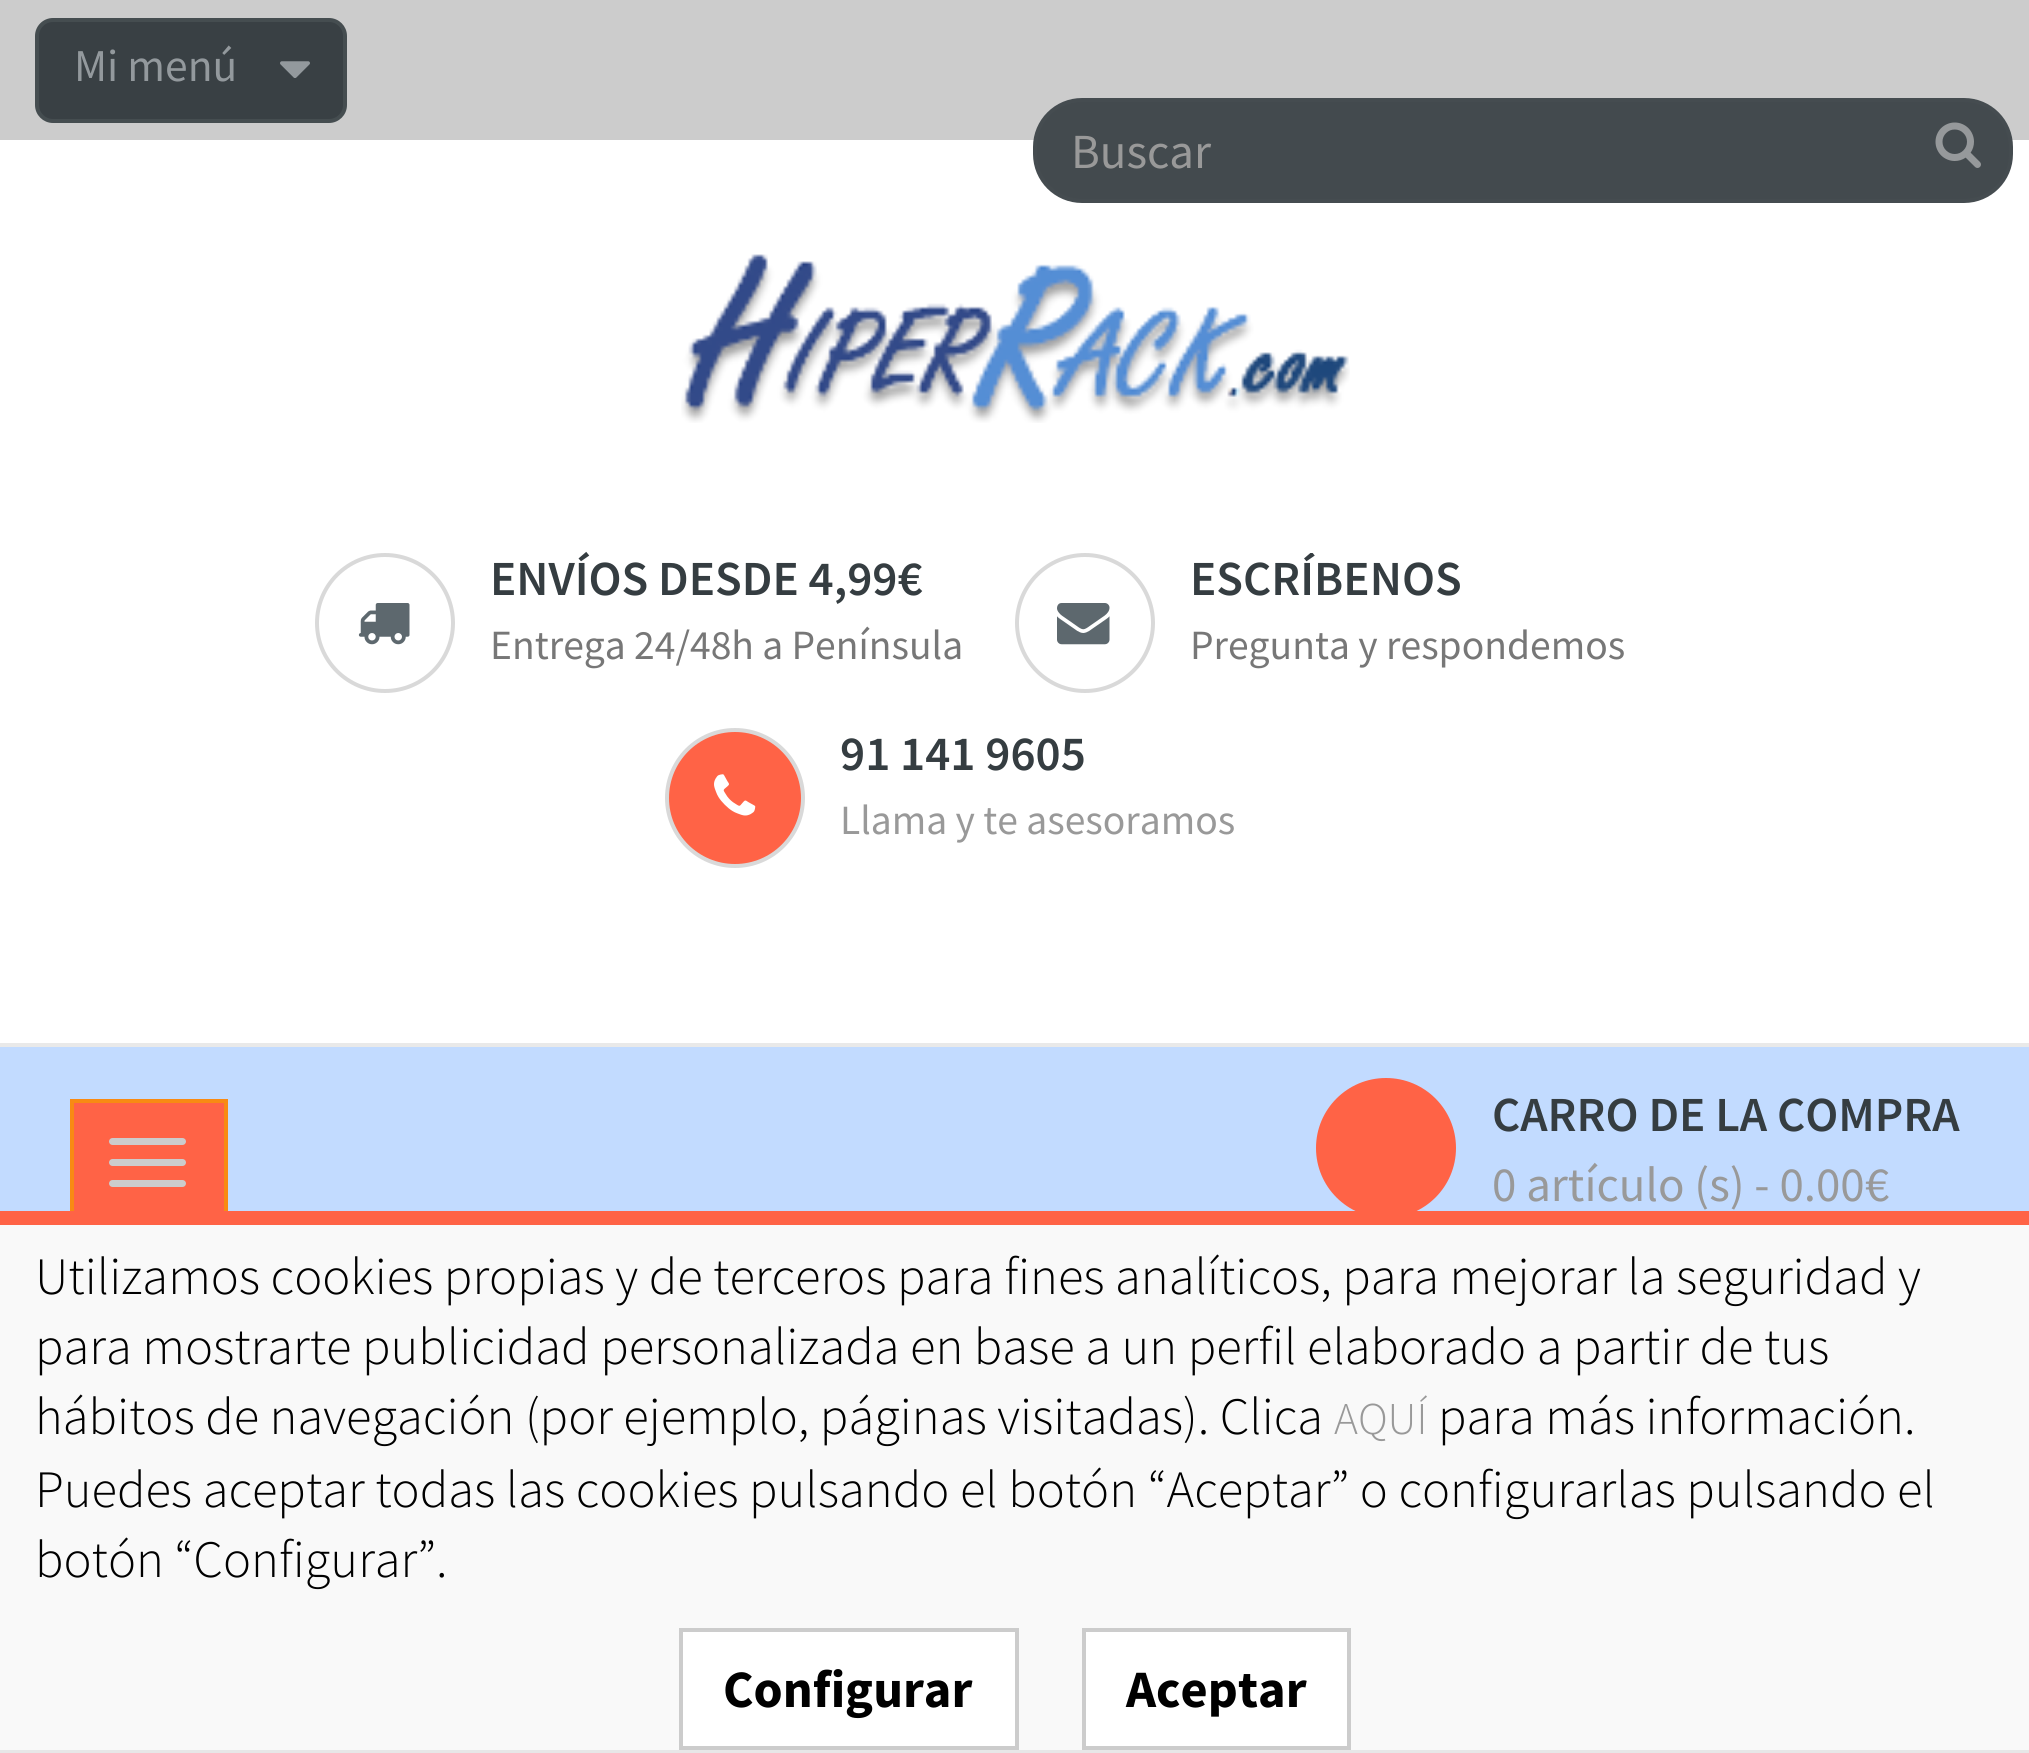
#include <cairo.h>
#include <math.h>
#include <stddef.h>


static void round_rect(cairo_t *cr, double x, double y, double w, double h, double r) {
    cairo_new_sub_path(cr);
    cairo_arc(cr, x + w - r, y + h - r, r, 0, M_PI / 2);
    cairo_arc(cr, x + r, y + h - r, r, M_PI / 2, M_PI);
    cairo_arc(cr, x + r, y + r, r, M_PI, 1.5 * M_PI);
    cairo_arc(cr, x + w - r, y + r, r, 1.5 * M_PI, 2 * M_PI);
    cairo_close_path(cr);
}

static void picture(cairo_t *cr, const char *path, double x, double y, double w, double h) {
    cairo_surface_t *image = cairo_image_surface_create_from_png(path);
    cairo_save(cr);
    cairo_set_source_surface(cr, image, x, y);
    cairo_rectangle(cr, x, y, w, h);
    cairo_fill(cr);
    cairo_restore(cr);
    cairo_surface_destroy(image);
}

int main(void) {
    cairo_surface_t *surface = cairo_image_surface_create(CAIRO_FORMAT_RGB24, 2029, 1753);
    cairo_t *cr = cairo_create(surface);
    cairo_font_options_t *options = cairo_font_options_create();
    cairo_font_options_set_hint_metrics(options, CAIRO_HINT_METRICS_OFF);
    cairo_font_options_set_hint_style(options, CAIRO_HINT_STYLE_NONE);
    cairo_set_font_options(cr, options);
    cairo_set_miter_limit(cr, 4);
    cairo_set_source_rgb(cr, 1, 1, 1);
    cairo_paint(cr);
    cairo_set_source_rgb(cr, 0.8, 0.8, 0.8);
    cairo_rectangle(cr, 0, 0, 2029, 140);
    cairo_fill(cr);
    cairo_set_source_rgb(cr, 0.224, 0.251, 0.267);
    round_rect(cr, 37, 20, 308, 101, 16);
    cairo_fill_preserve(cr);
    cairo_set_source_rgb(cr, 0.271, 0.302, 0.314);
    cairo_set_line_width(cr, 4);
    cairo_stroke(cr);
    cairo_select_font_face(cr, "Source Sans Pro", CAIRO_FONT_SLANT_NORMAL, CAIRO_FONT_WEIGHT_NORMAL);
    cairo_set_font_size(cr, 45.5);
    cairo_set_source_rgb(cr, 0.576, 0.6, 0.616);
    cairo_move_to(cr, 74, 81);
    cairo_show_text(cr, "Mi menú");
    picture(cr, "img1.png", 280, 61, 30, 17);
    cairo_set_source_rgb(cr, 0.263, 0.29, 0.306);
    round_rect(cr, 1035, 100, 976, 101, 47);
    cairo_fill_preserve(cr);
    cairo_set_source_rgb(cr, 0.271, 0.298, 0.314);
    cairo_stroke(cr);
    cairo_set_font_size(cr, 49);
    cairo_set_source_rgb(cr, 0.6, 0.6, 0.6);
    cairo_move_to(cr, 1071, 168);
    cairo_show_text(cr, "Buscar");
    picture(cr, "img2.png", 1935, 122, 46, 46);
    cairo_arc(cr, 385, 623, 68, 0, 2 * M_PI);
    cairo_set_source_rgb(cr, 0.851, 0.851, 0.851);
    cairo_stroke(cr);
    picture(cr, "img3.png", 358, 603, 52, 42);
    cairo_select_font_face(cr, "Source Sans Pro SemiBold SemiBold", CAIRO_FONT_SLANT_NORMAL, CAIRO_FONT_WEIGHT_NORMAL);
    cairo_set_source_rgb(cr, 0.208, 0.239, 0.255);
    cairo_move_to(cr, 490, 595);
    cairo_show_text(cr, "ENVÍOS DESDE 4,99€");
    cairo_select_font_face(cr, "Source Sans Pro", CAIRO_FONT_SLANT_NORMAL, CAIRO_FONT_WEIGHT_NORMAL);
    cairo_set_font_size(cr, 41.6);
    cairo_set_source_rgb(cr, 0.467, 0.467, 0.467);
    cairo_move_to(cr, 490, 659);
    cairo_show_text(cr, "Entrega 24/48h a Península");
    cairo_new_path(cr);
    cairo_arc(cr, 1085, 623, 68, 0, 2 * M_PI);
    cairo_set_source_rgb(cr, 0.851, 0.851, 0.851);
    cairo_stroke(cr);
    picture(cr, "img4.png", 1057, 603, 53, 42);
    cairo_save(cr);
    cairo_rectangle(cr, 1155, 553, 560, 126);
    cairo_clip(cr);
    cairo_select_font_face(cr, "Source Sans Pro SemiBold SemiBold", CAIRO_FONT_SLANT_NORMAL, CAIRO_FONT_WEIGHT_NORMAL);
    cairo_set_font_size(cr, 49);
    cairo_set_source_rgb(cr, 0.208, 0.239, 0.255);
    cairo_move_to(cr, 1190, 595);
    cairo_show_text(cr, "ESCRÍBENOS");
    cairo_restore(cr);
    cairo_set_source_rgb(cr, 0.467, 0.467, 0.467);
    cairo_move_to(cr, 1190, 659);
    cairo_show_text(cr, "Pregunta y respondemos");
    cairo_set_source_rgb(cr, 1, 0.388, 0.275);
    cairo_new_path(cr);
    cairo_arc(cr, 735, 798, 68, 0, 2 * M_PI);
    cairo_fill_preserve(cr);
    cairo_set_source_rgb(cr, 0.851, 0.851, 0.851);
    cairo_stroke(cr);
    picture(cr, "img5.png", 714, 774, 42, 42);
    cairo_select_font_face(cr, "Source Sans Pro SemiBold SemiBold", CAIRO_FONT_SLANT_NORMAL, CAIRO_FONT_WEIGHT_NORMAL);
    cairo_set_font_size(cr, 49);
    cairo_set_source_rgb(cr, 0.208, 0.239, 0.255);
    cairo_move_to(cr, 840, 770);
    cairo_show_text(cr, "91 141 9605");
    cairo_select_font_face(cr, "Source Sans Pro", CAIRO_FONT_SLANT_NORMAL, CAIRO_FONT_WEIGHT_NORMAL);
    cairo_set_font_size(cr, 41.6);
    cairo_set_source_rgb(cr, 0.6, 0.6, 0.6);
    cairo_move_to(cr, 840, 834);
    cairo_show_text(cr, "Llama y te asesoramos");
    cairo_set_source_rgb(cr, 0.761, 0.859, 1);
    cairo_rectangle(cr, 0, 1047, 2029, 164);
    cairo_fill(cr);
    cairo_set_source_rgb(cr, 1, 0.388, 0.275);
    cairo_arc(cr, 1386, 1148, 70, 0, 2 * M_PI);
    cairo_fill(cr);
    cairo_select_font_face(cr, "Source Sans Pro SemiBold SemiBold", CAIRO_FONT_SLANT_NORMAL, CAIRO_FONT_WEIGHT_NORMAL);
    cairo_set_font_size(cr, 49);
    cairo_set_source_rgb(cr, 0.208, 0.239, 0.255);
    cairo_move_to(cr, 1492, 1131);
    cairo_show_text(cr, "CARRO DE LA COMPRA");
    cairo_select_font_face(cr, "Source Sans Pro", CAIRO_FONT_SLANT_NORMAL, CAIRO_FONT_WEIGHT_NORMAL);
    cairo_set_source_rgb(cr, 0.6, 0.6, 0.6);
    cairo_move_to(cr, 1492, 1201);
    cairo_show_text(cr, "0 artículo (s) - 0.00€");
    picture(cr, "img6.png", 681, 254, 669, 169);
    cairo_set_source_rgb(cr, 0.914, 0.914, 0.914);
    cairo_rectangle(cr, 0, 1043, 2029, 4);
    cairo_fill(cr);
    cairo_set_source_rgb(cr, 1, 0.388, 0.275);
    cairo_rectangle(cr, 74, 1103, 150, 108);
    cairo_fill(cr);
    cairo_rectangle(cr, 72, 1101, 154, 119);
    cairo_set_source_rgb(cr, 0.969, 0.541, 0.078);
    cairo_stroke(cr);
    cairo_set_source_rgb(cr, 0.8, 0.8, 0.8);
    round_rect(cr, 109, 1138, 77, 7, 3.5);
    cairo_fill(cr);
    round_rect(cr, 109, 1159, 77, 7, 3.5);
    cairo_fill(cr);
    round_rect(cr, 109, 1180, 77, 7, 3.5);
    cairo_fill(cr);
    cairo_set_source_rgb(cr, 0.973, 0.973, 0.973);
    cairo_rectangle(cr, 0, 1225, 2029, 525);
    cairo_fill(cr);
    cairo_set_source_rgb(cr, 0.906, 0.906, 0.906);
    cairo_rectangle(cr, 0, 1750, 2029, 3);
    cairo_fill(cr);
    cairo_set_source_rgb(cr, 1, 0.388, 0.275);
    cairo_rectangle(cr, 0, 1211, 2029, 14);
    cairo_fill(cr);
    cairo_select_font_face(cr, "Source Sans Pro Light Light", CAIRO_FONT_SLANT_NORMAL, CAIRO_FONT_WEIGHT_NORMAL);
    cairo_set_font_size(cr, 52.5);
    cairo_set_source_rgb(cr, 0, 0, 0);
    cairo_move_to(cr, 35, 1294);
    cairo_show_text(cr, "Utilizamos cookies propias y de terceros para fines analíticos, para mejorar la seguridad y");
    cairo_move_to(cr, 35, 1364);
    cairo_show_text(cr, "para mostrarte publicidad personalizada en base a un perfil elaborado a partir de tus");
    cairo_move_to(cr, 35, 1434);
    cairo_show_text(cr, "hábitos de navegación (por ejemplo, páginas visitadas). Clica");
    cairo_set_font_size(cr, 45.5);
    cairo_set_source_rgb(cr, 0.6, 0.6, 0.6);
    cairo_move_to(cr, 1334, 1434);
    cairo_show_text(cr, "AQUÍ");
    cairo_set_font_size(cr, 52.5);
    cairo_set_source_rgb(cr, 0, 0, 0);
    cairo_move_to(cr, 1438, 1434);
    cairo_show_text(cr, "para más información.");
    cairo_move_to(cr, 35, 1507);
    cairo_show_text(cr, "Puedes aceptar todas las cookies pulsando el botón “Aceptar” o configurarlas pulsando el");
    cairo_move_to(cr, 35, 1577);
    cairo_show_text(cr, "botón “Configurar”.");
    cairo_set_source_rgb(cr, 1, 1, 1);
    cairo_rectangle(cr, 681, 1630, 336, 118);
    cairo_fill_preserve(cr);
    cairo_set_source_rgb(cr, 0.8, 0.8, 0.8);
    cairo_stroke(cr);
    cairo_select_font_face(cr, "Source Sans Pro", CAIRO_FONT_SLANT_NORMAL, CAIRO_FONT_WEIGHT_BOLD);
    cairo_set_source_rgb(cr, 0, 0, 0);
    cairo_move_to(cr, 723, 1707);
    cairo_show_text(cr, "Configurar");
    cairo_set_source_rgb(cr, 1, 1, 1);
    cairo_rectangle(cr, 1084, 1630, 265, 118);
    cairo_fill_preserve(cr);
    cairo_set_source_rgb(cr, 0.8, 0.8, 0.8);
    cairo_stroke(cr);
    cairo_set_source_rgb(cr, 0, 0, 0);
    cairo_move_to(cr, 1126, 1707);
    cairo_show_text(cr, "Aceptar");
    cairo_surface_write_to_png(surface, "page.png");
    cairo_font_options_destroy(options);
    cairo_destroy(cr);
    cairo_surface_destroy(surface);
    return 0;
}
